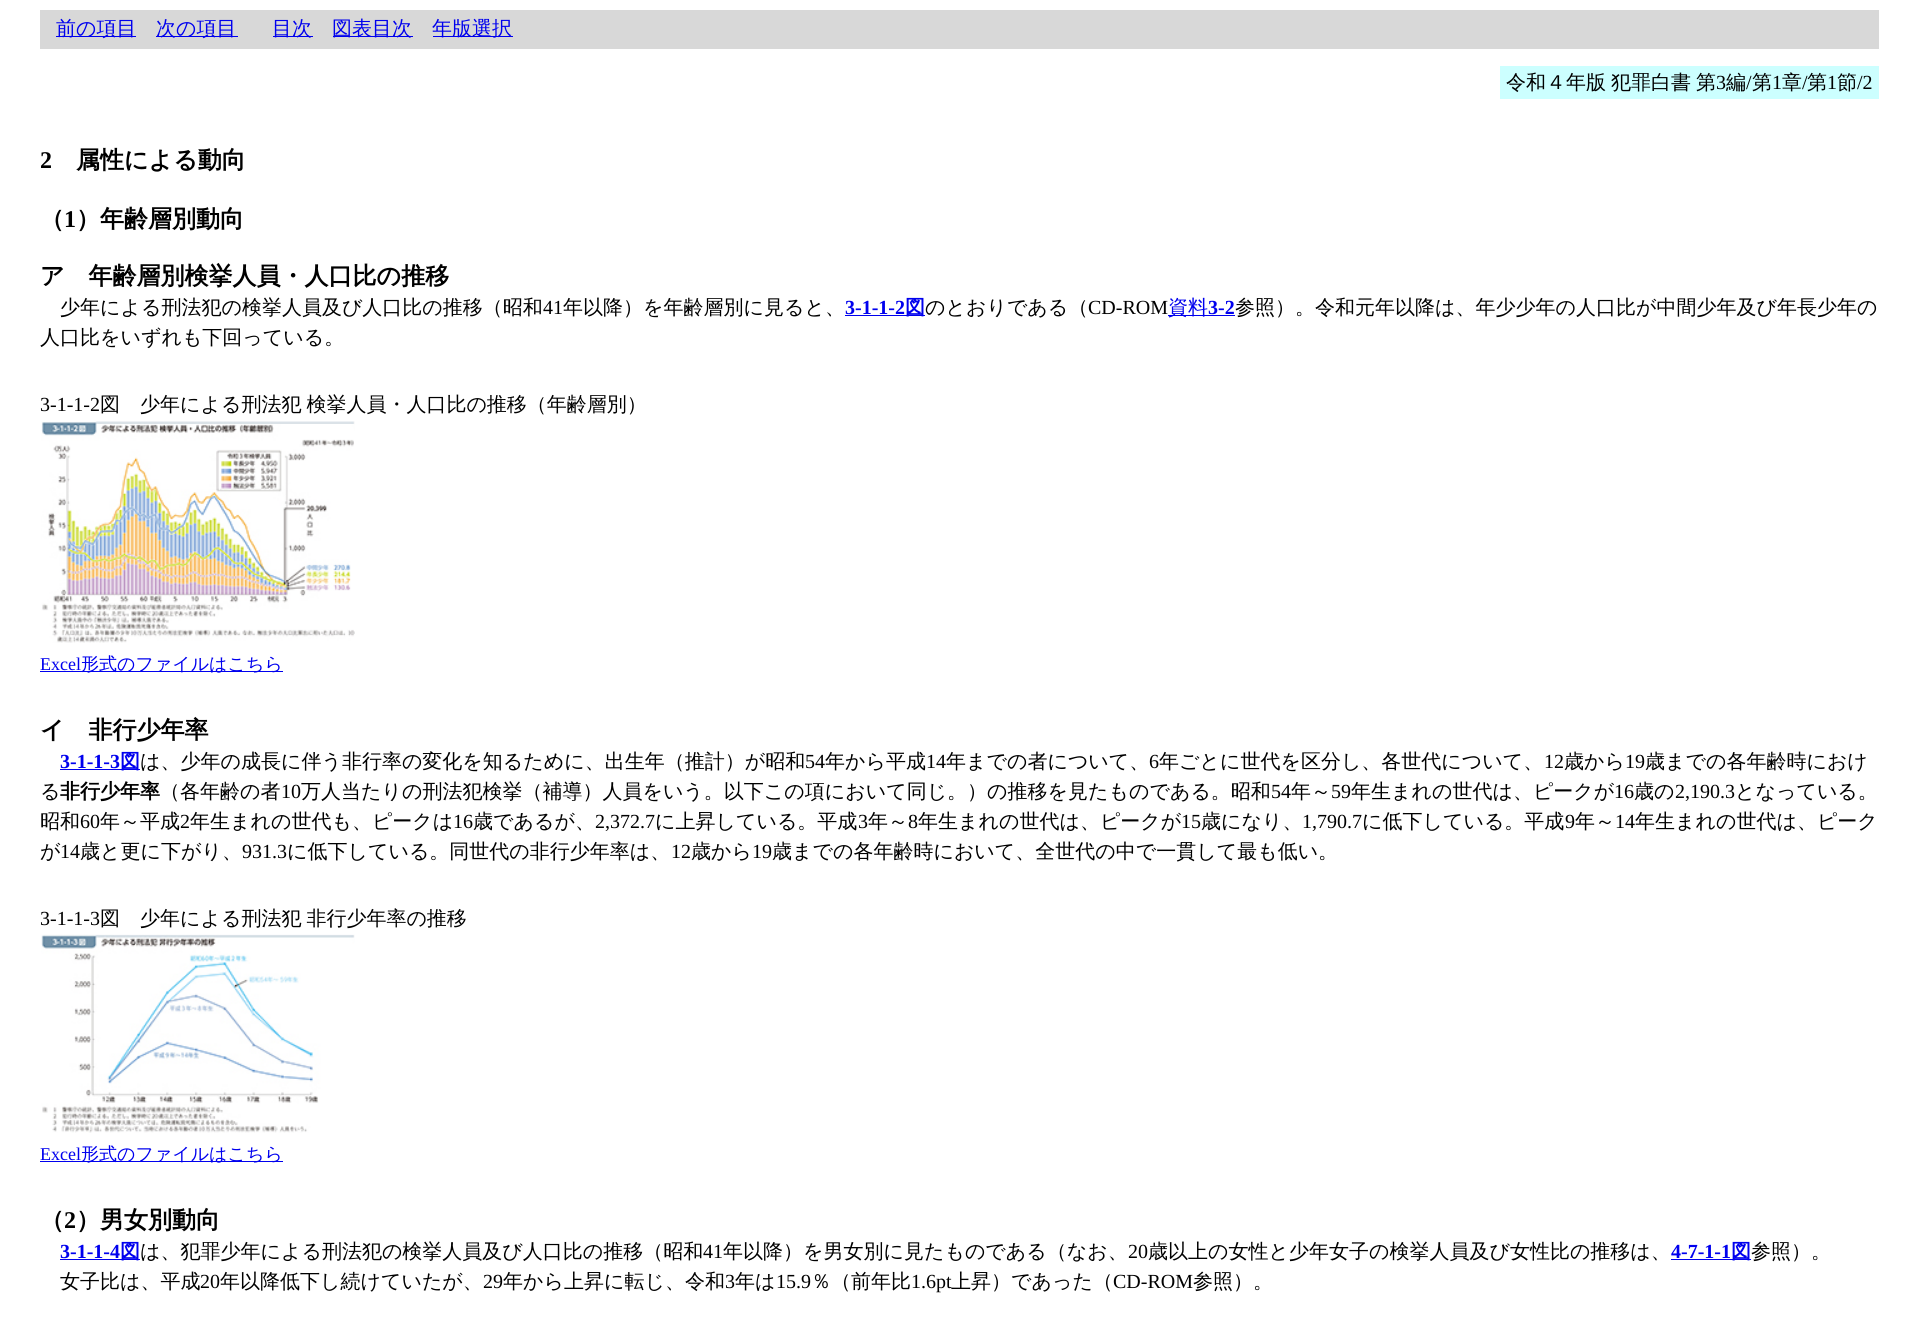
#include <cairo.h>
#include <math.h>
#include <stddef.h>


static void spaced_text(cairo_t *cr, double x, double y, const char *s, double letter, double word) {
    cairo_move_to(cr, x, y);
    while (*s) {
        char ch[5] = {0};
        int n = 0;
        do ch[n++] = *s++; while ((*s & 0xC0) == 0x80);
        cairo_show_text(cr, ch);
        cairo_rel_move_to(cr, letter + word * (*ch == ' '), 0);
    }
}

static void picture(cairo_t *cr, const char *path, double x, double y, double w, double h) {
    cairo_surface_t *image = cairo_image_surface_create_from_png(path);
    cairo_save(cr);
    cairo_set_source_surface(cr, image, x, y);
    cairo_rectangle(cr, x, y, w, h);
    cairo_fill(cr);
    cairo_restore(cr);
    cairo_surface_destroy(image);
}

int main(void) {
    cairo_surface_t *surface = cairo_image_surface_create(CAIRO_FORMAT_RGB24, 1918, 1331);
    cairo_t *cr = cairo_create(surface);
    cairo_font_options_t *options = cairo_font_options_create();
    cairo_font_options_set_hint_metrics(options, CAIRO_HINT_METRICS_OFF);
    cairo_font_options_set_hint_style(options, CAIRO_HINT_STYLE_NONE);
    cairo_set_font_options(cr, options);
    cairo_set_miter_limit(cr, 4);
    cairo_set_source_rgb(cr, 1, 1, 1);
    cairo_paint(cr);
    cairo_set_source_rgb(cr, 0.847, 0.847, 0.847);
    cairo_rectangle(cr, 40, 10, 1839, 39);
    cairo_fill(cr);
    cairo_set_source_rgb(cr, 0, 0, 0.933);
    cairo_rectangle(cr, 56, 36, 80, 1);
    cairo_fill(cr);
    cairo_select_font_face(cr, "WenQuanYi Zen Hei Medium", CAIRO_FONT_SLANT_NORMAL, CAIRO_FONT_WEIGHT_NORMAL);
    cairo_set_font_size(cr, 20);
    cairo_move_to(cr, 56, 35);
    cairo_show_text(cr, "前の項目");
    cairo_rectangle(cr, 156, 36, 82, 1);
    cairo_fill(cr);
    cairo_move_to(cr, 156, 35);
    cairo_show_text(cr, "次の項目");
    cairo_rectangle(cr, 273, 36, 40, 1);
    cairo_fill(cr);
    cairo_move_to(cr, 272, 35);
    cairo_show_text(cr, "目次");
    cairo_rectangle(cr, 333, 36, 80, 1);
    cairo_fill(cr);
    cairo_move_to(cr, 332, 35);
    cairo_show_text(cr, "図表目次");
    cairo_rectangle(cr, 433, 36, 80, 1);
    cairo_fill(cr);
    cairo_move_to(cr, 432, 35);
    cairo_show_text(cr, "年版選択");
    cairo_set_source_rgb(cr, 0.8, 1, 1);
    cairo_rectangle(cr, 1500, 66, 379, 33);
    cairo_fill(cr);
    cairo_set_source_rgb(cr, 0, 0, 0);
    spaced_text(cr, 1506, 89, "令和４年版 犯罪白書 第", 0, -1);
    cairo_select_font_face(cr, "Liberation Serif", CAIRO_FONT_SLANT_NORMAL, CAIRO_FONT_WEIGHT_NORMAL);
    cairo_move_to(cr, 1716, 89);
    cairo_show_text(cr, "3");
    cairo_select_font_face(cr, "WenQuanYi Zen Hei Medium", CAIRO_FONT_SLANT_NORMAL, CAIRO_FONT_WEIGHT_NORMAL);
    cairo_move_to(cr, 1726, 89);
    cairo_show_text(cr, "編");
    cairo_select_font_face(cr, "Liberation Serif", CAIRO_FONT_SLANT_NORMAL, CAIRO_FONT_WEIGHT_NORMAL);
    cairo_move_to(cr, 1746, 89);
    cairo_show_text(cr, "/");
    cairo_select_font_face(cr, "WenQuanYi Zen Hei Medium", CAIRO_FONT_SLANT_NORMAL, CAIRO_FONT_WEIGHT_NORMAL);
    cairo_move_to(cr, 1752, 89);
    cairo_show_text(cr, "第");
    cairo_select_font_face(cr, "Liberation Serif", CAIRO_FONT_SLANT_NORMAL, CAIRO_FONT_WEIGHT_NORMAL);
    cairo_move_to(cr, 1772, 89);
    cairo_show_text(cr, "1");
    cairo_select_font_face(cr, "WenQuanYi Zen Hei Medium", CAIRO_FONT_SLANT_NORMAL, CAIRO_FONT_WEIGHT_NORMAL);
    cairo_move_to(cr, 1782, 89);
    cairo_show_text(cr, "章");
    cairo_select_font_face(cr, "Liberation Serif", CAIRO_FONT_SLANT_NORMAL, CAIRO_FONT_WEIGHT_NORMAL);
    cairo_move_to(cr, 1802, 89);
    cairo_show_text(cr, "/");
    cairo_select_font_face(cr, "WenQuanYi Zen Hei Medium", CAIRO_FONT_SLANT_NORMAL, CAIRO_FONT_WEIGHT_NORMAL);
    cairo_move_to(cr, 1807, 89);
    cairo_show_text(cr, "第");
    cairo_select_font_face(cr, "Liberation Serif", CAIRO_FONT_SLANT_NORMAL, CAIRO_FONT_WEIGHT_NORMAL);
    cairo_move_to(cr, 1827, 89);
    cairo_show_text(cr, "1");
    cairo_select_font_face(cr, "WenQuanYi Zen Hei Medium", CAIRO_FONT_SLANT_NORMAL, CAIRO_FONT_WEIGHT_NORMAL);
    cairo_move_to(cr, 1837, 89);
    cairo_show_text(cr, "節");
    cairo_select_font_face(cr, "Liberation Serif", CAIRO_FONT_SLANT_NORMAL, CAIRO_FONT_WEIGHT_NORMAL);
    cairo_move_to(cr, 1857, 89);
    cairo_show_text(cr, "/2");
    cairo_select_font_face(cr, "Liberation Serif", CAIRO_FONT_SLANT_NORMAL, CAIRO_FONT_WEIGHT_BOLD);
    cairo_set_font_size(cr, 24);
    cairo_move_to(cr, 40, 168);
    cairo_show_text(cr, "2");
    cairo_select_font_face(cr, "WenQuanYi Zen Hei", CAIRO_FONT_SLANT_NORMAL, CAIRO_FONT_WEIGHT_BOLD);
    cairo_move_to(cr, 76, 168);
    cairo_show_text(cr, "属性による動向");
    cairo_move_to(cr, 40, 227);
    cairo_show_text(cr, "（");
    cairo_select_font_face(cr, "Liberation Serif", CAIRO_FONT_SLANT_NORMAL, CAIRO_FONT_WEIGHT_BOLD);
    cairo_move_to(cr, 64, 227);
    cairo_show_text(cr, "1");
    cairo_select_font_face(cr, "WenQuanYi Zen Hei", CAIRO_FONT_SLANT_NORMAL, CAIRO_FONT_WEIGHT_BOLD);
    cairo_move_to(cr, 76, 227);
    cairo_show_text(cr, "）年齢層別動向");
    cairo_move_to(cr, 40, 284);
    cairo_show_text(cr, "ア　年齢層別検挙人員・人口比の推移");
    cairo_select_font_face(cr, "WenQuanYi Zen Hei Medium", CAIRO_FONT_SLANT_NORMAL, CAIRO_FONT_WEIGHT_NORMAL);
    cairo_set_font_size(cr, 20);
    cairo_move_to(cr, 60, 314);
    cairo_show_text(cr, "少年による刑法犯の検挙人員及び人口比の推移（昭和");
    cairo_select_font_face(cr, "Liberation Serif", CAIRO_FONT_SLANT_NORMAL, CAIRO_FONT_WEIGHT_NORMAL);
    cairo_move_to(cr, 543, 314);
    cairo_show_text(cr, "41");
    cairo_select_font_face(cr, "WenQuanYi Zen Hei Medium", CAIRO_FONT_SLANT_NORMAL, CAIRO_FONT_WEIGHT_NORMAL);
    cairo_move_to(cr, 563, 314);
    cairo_show_text(cr, "年以降）を年齢層別に見ると、");
    cairo_select_font_face(cr, "Liberation Serif", CAIRO_FONT_SLANT_NORMAL, CAIRO_FONT_WEIGHT_BOLD);
    cairo_set_source_rgb(cr, 0, 0, 0.933);
    cairo_move_to(cr, 845, 314);
    cairo_show_text(cr, "3-1-1-2");
    cairo_rectangle(cr, 845, 315, 80, 1);
    cairo_fill(cr);
    cairo_select_font_face(cr, "WenQuanYi Zen Hei", CAIRO_FONT_SLANT_NORMAL, CAIRO_FONT_WEIGHT_BOLD);
    cairo_move_to(cr, 905, 314);
    cairo_show_text(cr, "図");
    cairo_select_font_face(cr, "WenQuanYi Zen Hei Medium", CAIRO_FONT_SLANT_NORMAL, CAIRO_FONT_WEIGHT_NORMAL);
    cairo_set_source_rgb(cr, 0, 0, 0);
    cairo_move_to(cr, 925, 314);
    cairo_show_text(cr, "のとおりである（");
    cairo_select_font_face(cr, "Liberation Serif", CAIRO_FONT_SLANT_NORMAL, CAIRO_FONT_WEIGHT_NORMAL);
    cairo_move_to(cr, 1088, 314);
    cairo_show_text(cr, "CD-ROM");
    cairo_set_source_rgb(cr, 0, 0, 0.933);
    cairo_rectangle(cr, 1168, 315, 67, 1);
    cairo_fill(cr);
    cairo_select_font_face(cr, "WenQuanYi Zen Hei Medium", CAIRO_FONT_SLANT_NORMAL, CAIRO_FONT_WEIGHT_NORMAL);
    cairo_move_to(cr, 1168, 314);
    cairo_show_text(cr, "資料");
    cairo_select_font_face(cr, "Liberation Serif", CAIRO_FONT_SLANT_NORMAL, CAIRO_FONT_WEIGHT_BOLD);
    cairo_move_to(cr, 1208, 314);
    cairo_show_text(cr, "3-2");
    cairo_select_font_face(cr, "WenQuanYi Zen Hei Medium", CAIRO_FONT_SLANT_NORMAL, CAIRO_FONT_WEIGHT_NORMAL);
    cairo_set_source_rgb(cr, 0, 0, 0);
    cairo_move_to(cr, 1235, 314);
    cairo_show_text(cr, "参照）。令和元年以降は、年少少年の人口比が中間少年及び年長少年の");
    cairo_move_to(cr, 40, 344);
    cairo_show_text(cr, "人口比をいずれも下回っている。");
    cairo_select_font_face(cr, "Liberation Serif", CAIRO_FONT_SLANT_NORMAL, CAIRO_FONT_WEIGHT_NORMAL);
    cairo_move_to(cr, 40, 411);
    cairo_show_text(cr, "3-1-1-2");
    cairo_select_font_face(cr, "WenQuanYi Zen Hei Medium", CAIRO_FONT_SLANT_NORMAL, CAIRO_FONT_WEIGHT_NORMAL);
    spaced_text(cr, 100, 411, "図　少年による刑法犯 検挙人員・人口比の推移（年齢層別）", 0, -1);
    picture(cr, "img1.png", 41, 421, 314, 222);
    cairo_select_font_face(cr, "Liberation Serif", CAIRO_FONT_SLANT_NORMAL, CAIRO_FONT_WEIGHT_NORMAL);
    cairo_set_font_size(cr, 18);
    cairo_set_source_rgb(cr, 0, 0, 0.933);
    cairo_move_to(cr, 40, 670);
    cairo_show_text(cr, "Excel");
    cairo_rectangle(cr, 40, 671, 243, 1);
    cairo_fill(cr);
    cairo_select_font_face(cr, "WenQuanYi Zen Hei Medium", CAIRO_FONT_SLANT_NORMAL, CAIRO_FONT_WEIGHT_NORMAL);
    cairo_move_to(cr, 81, 670);
    cairo_show_text(cr, "形式のファイルはこちら");
    cairo_select_font_face(cr, "WenQuanYi Zen Hei", CAIRO_FONT_SLANT_NORMAL, CAIRO_FONT_WEIGHT_BOLD);
    cairo_set_font_size(cr, 24);
    cairo_set_source_rgb(cr, 0, 0, 0);
    cairo_move_to(cr, 40, 738);
    cairo_show_text(cr, "イ　非行少年率");
    cairo_select_font_face(cr, "Liberation Serif", CAIRO_FONT_SLANT_NORMAL, CAIRO_FONT_WEIGHT_BOLD);
    cairo_set_font_size(cr, 20);
    cairo_set_source_rgb(cr, 0, 0, 0.933);
    cairo_move_to(cr, 60, 768);
    cairo_show_text(cr, "3-1-1-3");
    cairo_rectangle(cr, 60, 769, 80, 1);
    cairo_fill(cr);
    cairo_select_font_face(cr, "WenQuanYi Zen Hei", CAIRO_FONT_SLANT_NORMAL, CAIRO_FONT_WEIGHT_BOLD);
    cairo_move_to(cr, 120, 768);
    cairo_show_text(cr, "図");
    cairo_select_font_face(cr, "WenQuanYi Zen Hei Medium", CAIRO_FONT_SLANT_NORMAL, CAIRO_FONT_WEIGHT_NORMAL);
    cairo_set_source_rgb(cr, 0, 0, 0);
    cairo_move_to(cr, 140, 768);
    cairo_show_text(cr, "は、少年の成長に伴う非行率の変化を知るために、出生年（推計）が昭和");
    cairo_select_font_face(cr, "Liberation Serif", CAIRO_FONT_SLANT_NORMAL, CAIRO_FONT_WEIGHT_NORMAL);
    cairo_move_to(cr, 805, 768);
    cairo_show_text(cr, "54");
    cairo_select_font_face(cr, "WenQuanYi Zen Hei Medium", CAIRO_FONT_SLANT_NORMAL, CAIRO_FONT_WEIGHT_NORMAL);
    cairo_move_to(cr, 825, 768);
    cairo_show_text(cr, "年から平成");
    cairo_select_font_face(cr, "Liberation Serif", CAIRO_FONT_SLANT_NORMAL, CAIRO_FONT_WEIGHT_NORMAL);
    cairo_move_to(cr, 926, 768);
    cairo_show_text(cr, "14");
    cairo_select_font_face(cr, "WenQuanYi Zen Hei Medium", CAIRO_FONT_SLANT_NORMAL, CAIRO_FONT_WEIGHT_NORMAL);
    cairo_move_to(cr, 946, 768);
    cairo_show_text(cr, "年までの者について、");
    cairo_select_font_face(cr, "Liberation Serif", CAIRO_FONT_SLANT_NORMAL, CAIRO_FONT_WEIGHT_NORMAL);
    cairo_move_to(cr, 1149, 768);
    cairo_show_text(cr, "6");
    cairo_select_font_face(cr, "WenQuanYi Zen Hei Medium", CAIRO_FONT_SLANT_NORMAL, CAIRO_FONT_WEIGHT_NORMAL);
    cairo_move_to(cr, 1159, 768);
    cairo_show_text(cr, "年ごとに世代を区分し、各世代について、");
    cairo_select_font_face(cr, "Liberation Serif", CAIRO_FONT_SLANT_NORMAL, CAIRO_FONT_WEIGHT_NORMAL);
    cairo_move_to(cr, 1544, 768);
    cairo_show_text(cr, "12");
    cairo_select_font_face(cr, "WenQuanYi Zen Hei Medium", CAIRO_FONT_SLANT_NORMAL, CAIRO_FONT_WEIGHT_NORMAL);
    cairo_move_to(cr, 1564, 768);
    cairo_show_text(cr, "歳から");
    cairo_select_font_face(cr, "Liberation Serif", CAIRO_FONT_SLANT_NORMAL, CAIRO_FONT_WEIGHT_NORMAL);
    cairo_move_to(cr, 1625, 768);
    cairo_show_text(cr, "19");
    cairo_select_font_face(cr, "WenQuanYi Zen Hei Medium", CAIRO_FONT_SLANT_NORMAL, CAIRO_FONT_WEIGHT_NORMAL);
    cairo_move_to(cr, 1645, 768);
    cairo_show_text(cr, "歳までの各年齢時におけ");
    cairo_move_to(cr, 40, 798);
    cairo_show_text(cr, "る");
    cairo_select_font_face(cr, "WenQuanYi Zen Hei", CAIRO_FONT_SLANT_NORMAL, CAIRO_FONT_WEIGHT_BOLD);
    cairo_move_to(cr, 60, 798);
    cairo_show_text(cr, "非行少年率");
    cairo_select_font_face(cr, "WenQuanYi Zen Hei Medium", CAIRO_FONT_SLANT_NORMAL, CAIRO_FONT_WEIGHT_NORMAL);
    cairo_move_to(cr, 160, 798);
    cairo_show_text(cr, "（各年齢の者");
    cairo_select_font_face(cr, "Liberation Serif", CAIRO_FONT_SLANT_NORMAL, CAIRO_FONT_WEIGHT_NORMAL);
    cairo_move_to(cr, 281, 798);
    cairo_show_text(cr, "10");
    cairo_select_font_face(cr, "WenQuanYi Zen Hei Medium", CAIRO_FONT_SLANT_NORMAL, CAIRO_FONT_WEIGHT_NORMAL);
    cairo_move_to(cr, 301, 798);
    cairo_show_text(cr, "万人当たりの刑法犯検挙（補導）人員をいう。以下この項において同じ。）の推移を見たものである。昭和");
    cairo_select_font_face(cr, "Liberation Serif", CAIRO_FONT_SLANT_NORMAL, CAIRO_FONT_WEIGHT_NORMAL);
    cairo_move_to(cr, 1271, 798);
    cairo_show_text(cr, "54");
    cairo_select_font_face(cr, "WenQuanYi Zen Hei Medium", CAIRO_FONT_SLANT_NORMAL, CAIRO_FONT_WEIGHT_NORMAL);
    cairo_move_to(cr, 1291, 798);
    cairo_show_text(cr, "年～");
    cairo_select_font_face(cr, "Liberation Serif", CAIRO_FONT_SLANT_NORMAL, CAIRO_FONT_WEIGHT_NORMAL);
    cairo_move_to(cr, 1331, 798);
    cairo_show_text(cr, "59");
    cairo_select_font_face(cr, "WenQuanYi Zen Hei Medium", CAIRO_FONT_SLANT_NORMAL, CAIRO_FONT_WEIGHT_NORMAL);
    cairo_move_to(cr, 1351, 798);
    cairo_show_text(cr, "年生まれの世代は、ピークが");
    cairo_select_font_face(cr, "Liberation Serif", CAIRO_FONT_SLANT_NORMAL, CAIRO_FONT_WEIGHT_NORMAL);
    cairo_move_to(cr, 1614, 798);
    cairo_show_text(cr, "16");
    cairo_select_font_face(cr, "WenQuanYi Zen Hei Medium", CAIRO_FONT_SLANT_NORMAL, CAIRO_FONT_WEIGHT_NORMAL);
    cairo_move_to(cr, 1634, 798);
    cairo_show_text(cr, "歳の");
    cairo_select_font_face(cr, "Liberation Serif", CAIRO_FONT_SLANT_NORMAL, CAIRO_FONT_WEIGHT_NORMAL);
    cairo_move_to(cr, 1675, 798);
    cairo_show_text(cr, "2,190.3");
    cairo_select_font_face(cr, "WenQuanYi Zen Hei Medium", CAIRO_FONT_SLANT_NORMAL, CAIRO_FONT_WEIGHT_NORMAL);
    cairo_move_to(cr, 1735, 798);
    cairo_show_text(cr, "となっている。");
    cairo_move_to(cr, 40, 828);
    cairo_show_text(cr, "昭和");
    cairo_select_font_face(cr, "Liberation Serif", CAIRO_FONT_SLANT_NORMAL, CAIRO_FONT_WEIGHT_NORMAL);
    cairo_move_to(cr, 80, 828);
    cairo_show_text(cr, "60");
    cairo_select_font_face(cr, "WenQuanYi Zen Hei Medium", CAIRO_FONT_SLANT_NORMAL, CAIRO_FONT_WEIGHT_NORMAL);
    cairo_move_to(cr, 100, 828);
    cairo_show_text(cr, "年～平成");
    cairo_select_font_face(cr, "Liberation Serif", CAIRO_FONT_SLANT_NORMAL, CAIRO_FONT_WEIGHT_NORMAL);
    cairo_move_to(cr, 180, 828);
    cairo_show_text(cr, "2");
    cairo_select_font_face(cr, "WenQuanYi Zen Hei Medium", CAIRO_FONT_SLANT_NORMAL, CAIRO_FONT_WEIGHT_NORMAL);
    cairo_move_to(cr, 190, 828);
    cairo_show_text(cr, "年生まれの世代も、ピークは");
    cairo_select_font_face(cr, "Liberation Serif", CAIRO_FONT_SLANT_NORMAL, CAIRO_FONT_WEIGHT_NORMAL);
    cairo_move_to(cr, 453, 828);
    cairo_show_text(cr, "16");
    cairo_select_font_face(cr, "WenQuanYi Zen Hei Medium", CAIRO_FONT_SLANT_NORMAL, CAIRO_FONT_WEIGHT_NORMAL);
    cairo_move_to(cr, 473, 828);
    cairo_show_text(cr, "歳であるが、");
    cairo_select_font_face(cr, "Liberation Serif", CAIRO_FONT_SLANT_NORMAL, CAIRO_FONT_WEIGHT_NORMAL);
    cairo_move_to(cr, 595, 828);
    cairo_show_text(cr, "2,372.7");
    cairo_select_font_face(cr, "WenQuanYi Zen Hei Medium", CAIRO_FONT_SLANT_NORMAL, CAIRO_FONT_WEIGHT_NORMAL);
    cairo_move_to(cr, 655, 828);
    cairo_show_text(cr, "に上昇している。平成");
    cairo_select_font_face(cr, "Liberation Serif", CAIRO_FONT_SLANT_NORMAL, CAIRO_FONT_WEIGHT_NORMAL);
    cairo_move_to(cr, 858, 828);
    cairo_show_text(cr, "3");
    cairo_select_font_face(cr, "WenQuanYi Zen Hei Medium", CAIRO_FONT_SLANT_NORMAL, CAIRO_FONT_WEIGHT_NORMAL);
    cairo_move_to(cr, 868, 828);
    cairo_show_text(cr, "年～");
    cairo_select_font_face(cr, "Liberation Serif", CAIRO_FONT_SLANT_NORMAL, CAIRO_FONT_WEIGHT_NORMAL);
    cairo_move_to(cr, 908, 828);
    cairo_show_text(cr, "8");
    cairo_select_font_face(cr, "WenQuanYi Zen Hei Medium", CAIRO_FONT_SLANT_NORMAL, CAIRO_FONT_WEIGHT_NORMAL);
    cairo_move_to(cr, 918, 828);
    cairo_show_text(cr, "年生まれの世代は、ピークが");
    cairo_select_font_face(cr, "Liberation Serif", CAIRO_FONT_SLANT_NORMAL, CAIRO_FONT_WEIGHT_NORMAL);
    cairo_move_to(cr, 1181, 828);
    cairo_show_text(cr, "15");
    cairo_select_font_face(cr, "WenQuanYi Zen Hei Medium", CAIRO_FONT_SLANT_NORMAL, CAIRO_FONT_WEIGHT_NORMAL);
    cairo_move_to(cr, 1201, 828);
    cairo_show_text(cr, "歳になり、");
    cairo_select_font_face(cr, "Liberation Serif", CAIRO_FONT_SLANT_NORMAL, CAIRO_FONT_WEIGHT_NORMAL);
    cairo_move_to(cr, 1302, 828);
    cairo_show_text(cr, "1,790.7");
    cairo_select_font_face(cr, "WenQuanYi Zen Hei Medium", CAIRO_FONT_SLANT_NORMAL, CAIRO_FONT_WEIGHT_NORMAL);
    cairo_move_to(cr, 1362, 828);
    cairo_show_text(cr, "に低下している。平成");
    cairo_select_font_face(cr, "Liberation Serif", CAIRO_FONT_SLANT_NORMAL, CAIRO_FONT_WEIGHT_NORMAL);
    cairo_move_to(cr, 1565, 828);
    cairo_show_text(cr, "9");
    cairo_select_font_face(cr, "WenQuanYi Zen Hei Medium", CAIRO_FONT_SLANT_NORMAL, CAIRO_FONT_WEIGHT_NORMAL);
    cairo_move_to(cr, 1575, 828);
    cairo_show_text(cr, "年～");
    cairo_select_font_face(cr, "Liberation Serif", CAIRO_FONT_SLANT_NORMAL, CAIRO_FONT_WEIGHT_NORMAL);
    cairo_move_to(cr, 1615, 828);
    cairo_show_text(cr, "14");
    cairo_select_font_face(cr, "WenQuanYi Zen Hei Medium", CAIRO_FONT_SLANT_NORMAL, CAIRO_FONT_WEIGHT_NORMAL);
    cairo_move_to(cr, 1635, 828);
    cairo_show_text(cr, "年生まれの世代は、ピーク");
    cairo_move_to(cr, 40, 858);
    cairo_show_text(cr, "が");
    cairo_select_font_face(cr, "Liberation Serif", CAIRO_FONT_SLANT_NORMAL, CAIRO_FONT_WEIGHT_NORMAL);
    cairo_move_to(cr, 60, 858);
    cairo_show_text(cr, "14");
    cairo_select_font_face(cr, "WenQuanYi Zen Hei Medium", CAIRO_FONT_SLANT_NORMAL, CAIRO_FONT_WEIGHT_NORMAL);
    cairo_move_to(cr, 80, 858);
    cairo_show_text(cr, "歳と更に下がり、");
    cairo_select_font_face(cr, "Liberation Serif", CAIRO_FONT_SLANT_NORMAL, CAIRO_FONT_WEIGHT_NORMAL);
    cairo_move_to(cr, 242, 858);
    cairo_show_text(cr, "931.3");
    cairo_select_font_face(cr, "WenQuanYi Zen Hei Medium", CAIRO_FONT_SLANT_NORMAL, CAIRO_FONT_WEIGHT_NORMAL);
    cairo_move_to(cr, 287, 858);
    cairo_show_text(cr, "に低下している。同世代の非行少年率は、");
    cairo_select_font_face(cr, "Liberation Serif", CAIRO_FONT_SLANT_NORMAL, CAIRO_FONT_WEIGHT_NORMAL);
    cairo_move_to(cr, 671, 858);
    cairo_show_text(cr, "12");
    cairo_select_font_face(cr, "WenQuanYi Zen Hei Medium", CAIRO_FONT_SLANT_NORMAL, CAIRO_FONT_WEIGHT_NORMAL);
    cairo_move_to(cr, 691, 858);
    cairo_show_text(cr, "歳から");
    cairo_select_font_face(cr, "Liberation Serif", CAIRO_FONT_SLANT_NORMAL, CAIRO_FONT_WEIGHT_NORMAL);
    cairo_move_to(cr, 752, 858);
    cairo_show_text(cr, "19");
    cairo_select_font_face(cr, "WenQuanYi Zen Hei Medium", CAIRO_FONT_SLANT_NORMAL, CAIRO_FONT_WEIGHT_NORMAL);
    cairo_move_to(cr, 772, 858);
    cairo_show_text(cr, "歳までの各年齢時において、全世代の中で一貫して最も低い。");
    cairo_select_font_face(cr, "Liberation Serif", CAIRO_FONT_SLANT_NORMAL, CAIRO_FONT_WEIGHT_NORMAL);
    cairo_move_to(cr, 40, 925);
    cairo_show_text(cr, "3-1-1-3");
    cairo_select_font_face(cr, "WenQuanYi Zen Hei Medium", CAIRO_FONT_SLANT_NORMAL, CAIRO_FONT_WEIGHT_NORMAL);
    spaced_text(cr, 100, 925, "図　少年による刑法犯 非行少年率の推移", 0, -1);
    picture(cr, "img2.png", 41, 934, 314, 199);
    cairo_select_font_face(cr, "Liberation Serif", CAIRO_FONT_SLANT_NORMAL, CAIRO_FONT_WEIGHT_NORMAL);
    cairo_set_font_size(cr, 18);
    cairo_set_source_rgb(cr, 0, 0, 0.933);
    cairo_move_to(cr, 40, 1160);
    cairo_show_text(cr, "Excel");
    cairo_rectangle(cr, 40, 1161, 243, 1);
    cairo_fill(cr);
    cairo_select_font_face(cr, "WenQuanYi Zen Hei Medium", CAIRO_FONT_SLANT_NORMAL, CAIRO_FONT_WEIGHT_NORMAL);
    cairo_move_to(cr, 81, 1160);
    cairo_show_text(cr, "形式のファイルはこちら");
    cairo_select_font_face(cr, "WenQuanYi Zen Hei", CAIRO_FONT_SLANT_NORMAL, CAIRO_FONT_WEIGHT_BOLD);
    cairo_set_font_size(cr, 24);
    cairo_set_source_rgb(cr, 0, 0, 0);
    cairo_move_to(cr, 40, 1228);
    cairo_show_text(cr, "（");
    cairo_select_font_face(cr, "Liberation Serif", CAIRO_FONT_SLANT_NORMAL, CAIRO_FONT_WEIGHT_BOLD);
    cairo_move_to(cr, 64, 1228);
    cairo_show_text(cr, "2");
    cairo_select_font_face(cr, "WenQuanYi Zen Hei", CAIRO_FONT_SLANT_NORMAL, CAIRO_FONT_WEIGHT_BOLD);
    cairo_move_to(cr, 76, 1228);
    cairo_show_text(cr, "）男女別動向");
    cairo_select_font_face(cr, "Liberation Serif", CAIRO_FONT_SLANT_NORMAL, CAIRO_FONT_WEIGHT_BOLD);
    cairo_set_font_size(cr, 20);
    cairo_set_source_rgb(cr, 0, 0, 0.933);
    cairo_move_to(cr, 60, 1258);
    cairo_show_text(cr, "3-1-1-4");
    cairo_rectangle(cr, 60, 1259, 80, 1);
    cairo_fill(cr);
    cairo_select_font_face(cr, "WenQuanYi Zen Hei", CAIRO_FONT_SLANT_NORMAL, CAIRO_FONT_WEIGHT_BOLD);
    cairo_move_to(cr, 120, 1258);
    cairo_show_text(cr, "図");
    cairo_select_font_face(cr, "WenQuanYi Zen Hei Medium", CAIRO_FONT_SLANT_NORMAL, CAIRO_FONT_WEIGHT_NORMAL);
    cairo_set_source_rgb(cr, 0, 0, 0);
    cairo_move_to(cr, 140, 1258);
    cairo_show_text(cr, "は、犯罪少年による刑法犯の検挙人員及び人口比の推移（昭和");
    cairo_select_font_face(cr, "Liberation Serif", CAIRO_FONT_SLANT_NORMAL, CAIRO_FONT_WEIGHT_NORMAL);
    cairo_move_to(cr, 703, 1258);
    cairo_show_text(cr, "41");
    cairo_select_font_face(cr, "WenQuanYi Zen Hei Medium", CAIRO_FONT_SLANT_NORMAL, CAIRO_FONT_WEIGHT_NORMAL);
    cairo_move_to(cr, 723, 1258);
    cairo_show_text(cr, "年以降）を男女別に見たものである（なお、");
    cairo_select_font_face(cr, "Liberation Serif", CAIRO_FONT_SLANT_NORMAL, CAIRO_FONT_WEIGHT_NORMAL);
    cairo_move_to(cr, 1128, 1258);
    cairo_show_text(cr, "20");
    cairo_select_font_face(cr, "WenQuanYi Zen Hei Medium", CAIRO_FONT_SLANT_NORMAL, CAIRO_FONT_WEIGHT_NORMAL);
    cairo_move_to(cr, 1148, 1258);
    cairo_show_text(cr, "歳以上の女性と少年女子の検挙人員及び女性比の推移は、");
    cairo_select_font_face(cr, "Liberation Serif", CAIRO_FONT_SLANT_NORMAL, CAIRO_FONT_WEIGHT_BOLD);
    cairo_set_source_rgb(cr, 0, 0, 0.933);
    cairo_move_to(cr, 1671, 1258);
    cairo_show_text(cr, "4-7-1-1");
    cairo_rectangle(cr, 1671, 1259, 80, 1);
    cairo_fill(cr);
    cairo_select_font_face(cr, "WenQuanYi Zen Hei", CAIRO_FONT_SLANT_NORMAL, CAIRO_FONT_WEIGHT_BOLD);
    cairo_move_to(cr, 1731, 1258);
    cairo_show_text(cr, "図");
    cairo_select_font_face(cr, "WenQuanYi Zen Hei Medium", CAIRO_FONT_SLANT_NORMAL, CAIRO_FONT_WEIGHT_NORMAL);
    cairo_set_source_rgb(cr, 0, 0, 0);
    cairo_move_to(cr, 1751, 1258);
    cairo_show_text(cr, "参照）。");
    cairo_move_to(cr, 60, 1288);
    cairo_show_text(cr, "女子比は、平成");
    cairo_select_font_face(cr, "Liberation Serif", CAIRO_FONT_SLANT_NORMAL, CAIRO_FONT_WEIGHT_NORMAL);
    cairo_move_to(cr, 200, 1288);
    cairo_show_text(cr, "20");
    cairo_select_font_face(cr, "WenQuanYi Zen Hei Medium", CAIRO_FONT_SLANT_NORMAL, CAIRO_FONT_WEIGHT_NORMAL);
    cairo_move_to(cr, 220, 1288);
    cairo_show_text(cr, "年以降低下し続けていたが、");
    cairo_select_font_face(cr, "Liberation Serif", CAIRO_FONT_SLANT_NORMAL, CAIRO_FONT_WEIGHT_NORMAL);
    cairo_move_to(cr, 483, 1288);
    cairo_show_text(cr, "29");
    cairo_select_font_face(cr, "WenQuanYi Zen Hei Medium", CAIRO_FONT_SLANT_NORMAL, CAIRO_FONT_WEIGHT_NORMAL);
    cairo_move_to(cr, 503, 1288);
    cairo_show_text(cr, "年から上昇に転じ、令和");
    cairo_select_font_face(cr, "Liberation Serif", CAIRO_FONT_SLANT_NORMAL, CAIRO_FONT_WEIGHT_NORMAL);
    cairo_move_to(cr, 725, 1288);
    cairo_show_text(cr, "3");
    cairo_select_font_face(cr, "WenQuanYi Zen Hei Medium", CAIRO_FONT_SLANT_NORMAL, CAIRO_FONT_WEIGHT_NORMAL);
    cairo_move_to(cr, 735, 1288);
    cairo_show_text(cr, "年は");
    cairo_select_font_face(cr, "Liberation Serif", CAIRO_FONT_SLANT_NORMAL, CAIRO_FONT_WEIGHT_NORMAL);
    cairo_move_to(cr, 776, 1288);
    cairo_show_text(cr, "15.9");
    cairo_select_font_face(cr, "WenQuanYi Zen Hei Medium", CAIRO_FONT_SLANT_NORMAL, CAIRO_FONT_WEIGHT_NORMAL);
    cairo_move_to(cr, 811, 1288);
    cairo_show_text(cr, "％（前年比");
    cairo_select_font_face(cr, "Liberation Serif", CAIRO_FONT_SLANT_NORMAL, CAIRO_FONT_WEIGHT_NORMAL);
    cairo_move_to(cr, 911, 1288);
    cairo_show_text(cr, "1.6pt");
    cairo_select_font_face(cr, "WenQuanYi Zen Hei Medium", CAIRO_FONT_SLANT_NORMAL, CAIRO_FONT_WEIGHT_NORMAL);
    cairo_move_to(cr, 951, 1288);
    cairo_show_text(cr, "上昇）であった（");
    cairo_select_font_face(cr, "Liberation Serif", CAIRO_FONT_SLANT_NORMAL, CAIRO_FONT_WEIGHT_NORMAL);
    cairo_move_to(cr, 1113, 1288);
    cairo_show_text(cr, "CD-ROM");
    cairo_select_font_face(cr, "WenQuanYi Zen Hei Medium", CAIRO_FONT_SLANT_NORMAL, CAIRO_FONT_WEIGHT_NORMAL);
    cairo_move_to(cr, 1193, 1288);
    cairo_show_text(cr, "参照）。");
    cairo_surface_write_to_png(surface, "page.png");
    cairo_font_options_destroy(options);
    cairo_destroy(cr);
    cairo_surface_destroy(surface);
    return 0;
}
